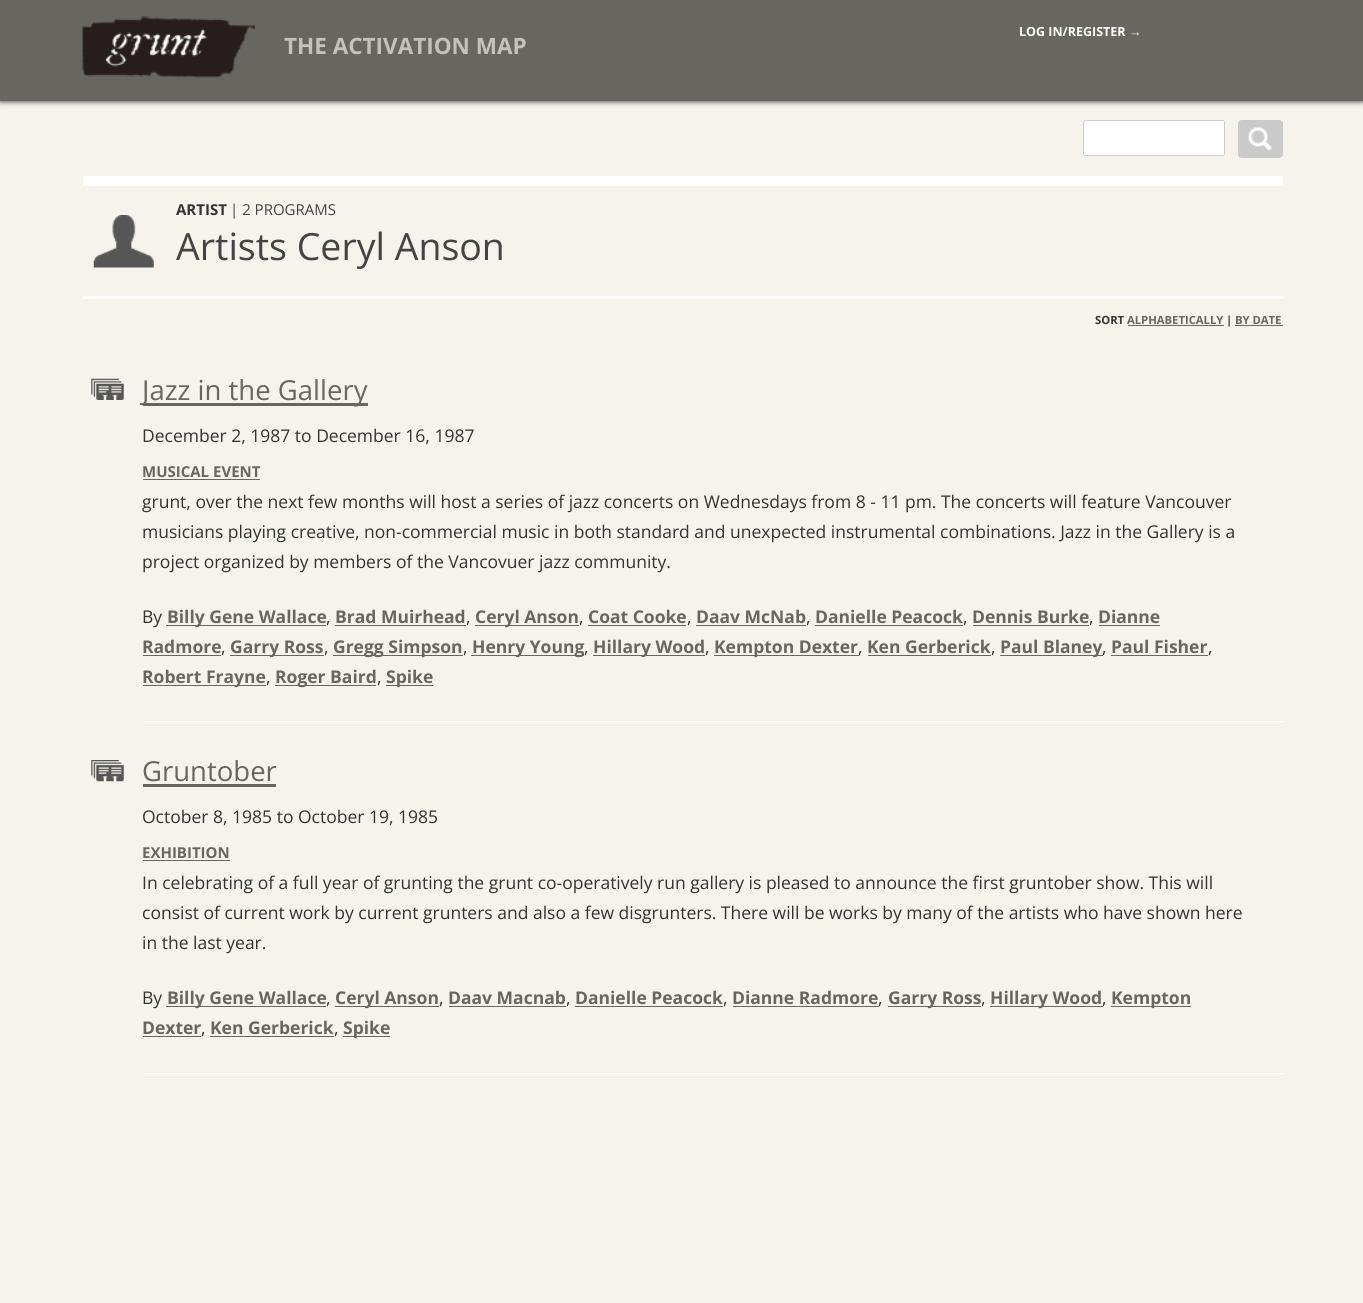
#include <cairo.h>
#include <math.h>
#include <stddef.h>


static void round_rect(cairo_t *cr, double x, double y, double w, double h, double r) {
    cairo_new_sub_path(cr);
    cairo_arc(cr, x + w - r, y + h - r, r, 0, M_PI / 2);
    cairo_arc(cr, x + r, y + h - r, r, M_PI / 2, M_PI);
    cairo_arc(cr, x + r, y + r, r, M_PI, 1.5 * M_PI);
    cairo_arc(cr, x + w - r, y + r, r, 1.5 * M_PI, 2 * M_PI);
    cairo_close_path(cr);
}

static void shadow(cairo_t *cr, double x, double y, double w, double h, double r, double blur, double alpha) {
    cairo_push_group_with_content(cr, CAIRO_CONTENT_ALPHA);
    cairo_set_operator(cr, CAIRO_OPERATOR_SOURCE);
    for (int i = 15; i >= -15 && fmin(w, h) + blur * i / 3 > 0; i -= 2) {
        double e = blur * i / 6;
        cairo_set_source_rgba(cr, 0, 0, 0, alpha * erfc((i - 1) / 8.5) / 2);
        round_rect(cr, x - e, y - e, w + 2 * e, h + 2 * e, fmax(0, fmin(r + e + blur * .6, fmin(w, h) / 2 + e)));
        cairo_fill(cr);
    }
    cairo_pattern_t *soft = cairo_pop_group(cr);
    cairo_mask(cr, soft);
    cairo_pattern_destroy(soft);
}

static void picture(cairo_t *cr, const char *path, double x, double y, double w, double h) {
    cairo_surface_t *image = cairo_image_surface_create_from_png(path);
    cairo_save(cr);
    cairo_set_source_surface(cr, image, x, y);
    cairo_rectangle(cr, x, y, w, h);
    cairo_fill(cr);
    cairo_restore(cr);
    cairo_surface_destroy(image);
}

int main(void) {
    cairo_surface_t *surface = cairo_image_surface_create(CAIRO_FORMAT_RGB24, 1363, 1303);
    cairo_t *cr = cairo_create(surface);
    cairo_font_options_t *options = cairo_font_options_create();
    cairo_font_options_set_hint_metrics(options, CAIRO_HINT_METRICS_OFF);
    cairo_font_options_set_hint_style(options, CAIRO_HINT_STYLE_NONE);
    cairo_set_font_options(cr, options);
    cairo_set_miter_limit(cr, 4);
    cairo_set_source_rgb(cr, 0.961, 0.953, 0.922);
    cairo_paint(cr);
    cairo_set_source_rgb(cr, 0.133, 0.133, 0.133);
    shadow(cr, 0, 0, 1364, 101, 0, 3, 1);
    cairo_set_source_rgb(cr, 0.408, 0.4, 0.376);
    cairo_rectangle(cr, 0, 0, 1363, 101);
    cairo_fill(cr);
    picture(cr, "img1.png", 82, 16, 173, 62);
    cairo_select_font_face(cr, "Open Sans", CAIRO_FONT_SLANT_NORMAL, CAIRO_FONT_WEIGHT_BOLD);
    cairo_set_font_size(cr, 12.5);
    cairo_set_source_rgb(cr, 1, 1, 1);
    cairo_move_to(cr, 1019, 36);
    cairo_show_text(cr, "LOG IN/REGISTER");
    cairo_select_font_face(cr, "Liberation Sans", CAIRO_FONT_SLANT_NORMAL, CAIRO_FONT_WEIGHT_BOLD);
    cairo_move_to(cr, 1129, 36);
    cairo_show_text(cr, "→");
    cairo_select_font_face(cr, "Open Sans", CAIRO_FONT_SLANT_NORMAL, CAIRO_FONT_WEIGHT_BOLD);
    cairo_set_font_size(cr, 22.5);
    cairo_set_source_rgb(cr, 0.765, 0.761, 0.749);
    cairo_move_to(cr, 284, 54);
    cairo_show_text(cr, "THE ACTIVATION MAP");
    cairo_set_source_rgb(cr, 1, 1, 1);
    round_rect(cr, 1083.5, 120.5, 141, 35, 2);
    cairo_fill_preserve(cr);
    cairo_set_source_rgb(cr, 0.8, 0.8, 0.8);
    cairo_set_line_width(cr, 1);
    cairo_stroke(cr);
    cairo_set_source_rgb(cr, 0.796, 0.792, 0.792);
    round_rect(cr, 1238, 120, 45, 38, 4);
    cairo_fill(cr);
    picture(cr, "img2.png", 1248, 127, 24, 23);
    picture(cr, "img3.png", 93, 215, 61, 53);
    cairo_set_source_rgb(cr, 1, 1, 1);
    cairo_rectangle(cr, 83, 176, 1200, 10);
    cairo_fill(cr);
    cairo_rectangle(cr, 83, 296, 1200, 3);
    cairo_fill(cr);
    cairo_set_font_size(cr, 15);
    cairo_set_source_rgb(cr, 0.2, 0.2, 0.2);
    cairo_move_to(cr, 176, 215);
    cairo_show_text(cr, "ARTIST");
    cairo_select_font_face(cr, "Open Sans", CAIRO_FONT_SLANT_NORMAL, CAIRO_FONT_WEIGHT_NORMAL);
    cairo_set_source_rgb(cr, 0.267, 0.267, 0.267);
    cairo_move_to(cr, 230, 215);
    cairo_show_text(cr, "| 2 PROGRAMS");
    cairo_set_font_size(cr, 37.5);
    cairo_move_to(cr, 176, 260);
    cairo_show_text(cr, "Artists Ceryl Anson");
    cairo_select_font_face(cr, "Open Sans", CAIRO_FONT_SLANT_NORMAL, CAIRO_FONT_WEIGHT_BOLD);
    cairo_set_font_size(cr, 11.25);
    cairo_set_source_rgb(cr, 0.2, 0.2, 0.2);
    cairo_move_to(cr, 1095, 324);
    cairo_show_text(cr, "SORT");
    cairo_set_source_rgb(cr, 0.408, 0.4, 0.376);
    cairo_move_to(cr, 1127, 324);
    cairo_show_text(cr, "ALPHABETICALLY");
    cairo_rectangle(cr, 1128, 325, 96, 1);
    cairo_fill(cr);
    cairo_set_source_rgb(cr, 0.2, 0.2, 0.2);
    cairo_move_to(cr, 1226, 324);
    cairo_show_text(cr, "|");
    cairo_set_source_rgb(cr, 0.408, 0.4, 0.376);
    cairo_move_to(cr, 1235, 324);
    cairo_show_text(cr, "BY DATE");
    cairo_rectangle(cr, 1235, 325, 48, 1);
    cairo_fill(cr);
    picture(cr, "img4.png", 91, 378, 33, 22);
    cairo_set_source_rgb(cr, 1, 1, 1);
    cairo_rectangle(cr, 143, 721, 1140, 1);
    cairo_fill(cr);
    cairo_set_source_rgb(cr, 0.408, 0.4, 0.376);
    cairo_rectangle(cr, 143, 403, 225, 3);
    cairo_fill(cr);
    cairo_select_font_face(cr, "Open Sans", CAIRO_FONT_SLANT_NORMAL, CAIRO_FONT_WEIGHT_NORMAL);
    cairo_set_font_size(cr, 27.5);
    cairo_move_to(cr, 142, 400);
    cairo_show_text(cr, "Jazz in the Gallery");
    cairo_set_font_size(cr, 17.5);
    cairo_set_source_rgb(cr, 0.2, 0.2, 0.2);
    cairo_move_to(cr, 142, 442);
    cairo_show_text(cr, "December 2, 1987 to December 16, 1987");
    cairo_select_font_face(cr, "Open Sans", CAIRO_FONT_SLANT_NORMAL, CAIRO_FONT_WEIGHT_BOLD);
    cairo_set_font_size(cr, 15);
    cairo_set_source_rgb(cr, 0.408, 0.4, 0.376);
    cairo_move_to(cr, 142, 477);
    cairo_show_text(cr, "MUSICAL EVENT");
    cairo_rectangle(cr, 143, 479, 117, 1);
    cairo_fill(cr);
    cairo_select_font_face(cr, "Open Sans", CAIRO_FONT_SLANT_NORMAL, CAIRO_FONT_WEIGHT_NORMAL);
    cairo_set_font_size(cr, 17.5);
    cairo_set_source_rgb(cr, 0.2, 0.2, 0.2);
    cairo_move_to(cr, 142, 508);
    cairo_show_text(cr, "grunt, over the next few months will host a series of jazz concerts on Wednesdays from 8 - 11 pm. The concerts will feature Vancouver");
    cairo_move_to(cr, 142, 538);
    cairo_show_text(cr, "musicians playing creative, non-commercial music in both standard and unexpected instrumental combinations. Jazz in the Gallery is a");
    cairo_move_to(cr, 142, 568);
    cairo_show_text(cr, "project organized by members of the Vancovuer jazz community.");
    cairo_move_to(cr, 142, 623);
    cairo_show_text(cr, "By");
    cairo_set_source_rgb(cr, 0.408, 0.4, 0.376);
    cairo_rectangle(cr, 166, 625, 160, 1);
    cairo_fill(cr);
    cairo_select_font_face(cr, "Open Sans", CAIRO_FONT_SLANT_NORMAL, CAIRO_FONT_WEIGHT_BOLD);
    cairo_move_to(cr, 167, 623);
    cairo_show_text(cr, "Billy Gene Wallace");
    cairo_select_font_face(cr, "Open Sans", CAIRO_FONT_SLANT_NORMAL, CAIRO_FONT_WEIGHT_NORMAL);
    cairo_set_source_rgb(cr, 0.2, 0.2, 0.2);
    cairo_move_to(cr, 326, 623);
    cairo_show_text(cr, ",");
    cairo_select_font_face(cr, "Open Sans", CAIRO_FONT_SLANT_NORMAL, CAIRO_FONT_WEIGHT_BOLD);
    cairo_set_source_rgb(cr, 0.408, 0.4, 0.376);
    cairo_move_to(cr, 335, 623);
    cairo_show_text(cr, "Brad Muirhead");
    cairo_rectangle(cr, 335, 625, 131, 1);
    cairo_fill(cr);
    cairo_select_font_face(cr, "Open Sans", CAIRO_FONT_SLANT_NORMAL, CAIRO_FONT_WEIGHT_NORMAL);
    cairo_set_source_rgb(cr, 0.2, 0.2, 0.2);
    cairo_move_to(cr, 466, 623);
    cairo_show_text(cr, ",");
    cairo_set_source_rgb(cr, 0.408, 0.4, 0.376);
    cairo_rectangle(cr, 475, 625, 104, 1);
    cairo_fill(cr);
    cairo_select_font_face(cr, "Open Sans", CAIRO_FONT_SLANT_NORMAL, CAIRO_FONT_WEIGHT_BOLD);
    cairo_move_to(cr, 475, 623);
    cairo_show_text(cr, "Ceryl Anson");
    cairo_select_font_face(cr, "Open Sans", CAIRO_FONT_SLANT_NORMAL, CAIRO_FONT_WEIGHT_NORMAL);
    cairo_set_source_rgb(cr, 0.2, 0.2, 0.2);
    cairo_move_to(cr, 579, 623);
    cairo_show_text(cr, ",");
    cairo_select_font_face(cr, "Open Sans", CAIRO_FONT_SLANT_NORMAL, CAIRO_FONT_WEIGHT_BOLD);
    cairo_set_source_rgb(cr, 0.408, 0.4, 0.376);
    cairo_move_to(cr, 588, 623);
    cairo_show_text(cr, "Coat Cooke");
    cairo_rectangle(cr, 588, 625, 98, 1);
    cairo_fill(cr);
    cairo_select_font_face(cr, "Open Sans", CAIRO_FONT_SLANT_NORMAL, CAIRO_FONT_WEIGHT_NORMAL);
    cairo_set_source_rgb(cr, 0.2, 0.2, 0.2);
    cairo_move_to(cr, 687, 623);
    cairo_show_text(cr, ",");
    cairo_select_font_face(cr, "Open Sans", CAIRO_FONT_SLANT_NORMAL, CAIRO_FONT_WEIGHT_BOLD);
    cairo_set_source_rgb(cr, 0.408, 0.4, 0.376);
    cairo_move_to(cr, 696, 623);
    cairo_show_text(cr, "Daav McNab");
    cairo_rectangle(cr, 696, 625, 110, 1);
    cairo_fill(cr);
    cairo_select_font_face(cr, "Open Sans", CAIRO_FONT_SLANT_NORMAL, CAIRO_FONT_WEIGHT_NORMAL);
    cairo_set_source_rgb(cr, 0.2, 0.2, 0.2);
    cairo_move_to(cr, 806, 623);
    cairo_show_text(cr, ",");
    cairo_select_font_face(cr, "Open Sans", CAIRO_FONT_SLANT_NORMAL, CAIRO_FONT_WEIGHT_BOLD);
    cairo_set_source_rgb(cr, 0.408, 0.4, 0.376);
    cairo_move_to(cr, 815, 623);
    cairo_show_text(cr, "Danielle Peacock");
    cairo_rectangle(cr, 815, 625, 148, 1);
    cairo_fill(cr);
    cairo_select_font_face(cr, "Open Sans", CAIRO_FONT_SLANT_NORMAL, CAIRO_FONT_WEIGHT_NORMAL);
    cairo_set_source_rgb(cr, 0.2, 0.2, 0.2);
    cairo_move_to(cr, 963, 623);
    cairo_show_text(cr, ",");
    cairo_select_font_face(cr, "Open Sans", CAIRO_FONT_SLANT_NORMAL, CAIRO_FONT_WEIGHT_BOLD);
    cairo_set_source_rgb(cr, 0.408, 0.4, 0.376);
    cairo_move_to(cr, 972, 623);
    cairo_show_text(cr, "Dennis Burke");
    cairo_rectangle(cr, 973, 625, 116, 1);
    cairo_fill(cr);
    cairo_select_font_face(cr, "Open Sans", CAIRO_FONT_SLANT_NORMAL, CAIRO_FONT_WEIGHT_NORMAL);
    cairo_set_source_rgb(cr, 0.2, 0.2, 0.2);
    cairo_move_to(cr, 1089, 623);
    cairo_show_text(cr, ",");
    cairo_select_font_face(cr, "Open Sans", CAIRO_FONT_SLANT_NORMAL, CAIRO_FONT_WEIGHT_BOLD);
    cairo_set_source_rgb(cr, 0.408, 0.4, 0.376);
    cairo_move_to(cr, 1098, 623);
    cairo_show_text(cr, "Dianne");
    cairo_rectangle(cr, 1099, 625, 61, 1);
    cairo_fill(cr);
    cairo_move_to(cr, 142, 653);
    cairo_show_text(cr, "Radmore");
    cairo_rectangle(cr, 143, 655, 78, 1);
    cairo_fill(cr);
    cairo_select_font_face(cr, "Open Sans", CAIRO_FONT_SLANT_NORMAL, CAIRO_FONT_WEIGHT_NORMAL);
    cairo_set_source_rgb(cr, 0.2, 0.2, 0.2);
    cairo_move_to(cr, 221, 653);
    cairo_show_text(cr, ",");
    cairo_set_source_rgb(cr, 0.408, 0.4, 0.376);
    cairo_rectangle(cr, 230, 655, 94, 1);
    cairo_fill(cr);
    cairo_select_font_face(cr, "Open Sans", CAIRO_FONT_SLANT_NORMAL, CAIRO_FONT_WEIGHT_BOLD);
    cairo_move_to(cr, 230, 653);
    cairo_show_text(cr, "Garry Ross");
    cairo_select_font_face(cr, "Open Sans", CAIRO_FONT_SLANT_NORMAL, CAIRO_FONT_WEIGHT_NORMAL);
    cairo_set_source_rgb(cr, 0.2, 0.2, 0.2);
    cairo_move_to(cr, 324, 653);
    cairo_show_text(cr, ",");
    cairo_set_source_rgb(cr, 0.408, 0.4, 0.376);
    cairo_rectangle(cr, 333, 655, 130, 1);
    cairo_fill(cr);
    cairo_select_font_face(cr, "Open Sans", CAIRO_FONT_SLANT_NORMAL, CAIRO_FONT_WEIGHT_BOLD);
    cairo_move_to(cr, 333, 653);
    cairo_show_text(cr, "Gregg Simpson");
    cairo_select_font_face(cr, "Open Sans", CAIRO_FONT_SLANT_NORMAL, CAIRO_FONT_WEIGHT_NORMAL);
    cairo_set_source_rgb(cr, 0.2, 0.2, 0.2);
    cairo_move_to(cr, 463, 653);
    cairo_show_text(cr, ",");
    cairo_set_source_rgb(cr, 0.408, 0.4, 0.376);
    cairo_rectangle(cr, 471, 655, 113, 1);
    cairo_fill(cr);
    cairo_select_font_face(cr, "Open Sans", CAIRO_FONT_SLANT_NORMAL, CAIRO_FONT_WEIGHT_BOLD);
    cairo_move_to(cr, 472, 653);
    cairo_show_text(cr, "Henry Young");
    cairo_select_font_face(cr, "Open Sans", CAIRO_FONT_SLANT_NORMAL, CAIRO_FONT_WEIGHT_NORMAL);
    cairo_set_source_rgb(cr, 0.2, 0.2, 0.2);
    cairo_move_to(cr, 584, 653);
    cairo_show_text(cr, ",");
    cairo_set_source_rgb(cr, 0.408, 0.4, 0.376);
    cairo_rectangle(cr, 593, 655, 112, 1);
    cairo_fill(cr);
    cairo_select_font_face(cr, "Open Sans", CAIRO_FONT_SLANT_NORMAL, CAIRO_FONT_WEIGHT_BOLD);
    cairo_move_to(cr, 593, 653);
    cairo_show_text(cr, "Hillary Wood");
    cairo_select_font_face(cr, "Open Sans", CAIRO_FONT_SLANT_NORMAL, CAIRO_FONT_WEIGHT_NORMAL);
    cairo_set_source_rgb(cr, 0.2, 0.2, 0.2);
    cairo_move_to(cr, 705, 653);
    cairo_show_text(cr, ",");
    cairo_set_source_rgb(cr, 0.408, 0.4, 0.376);
    cairo_rectangle(cr, 714, 655, 145, 1);
    cairo_fill(cr);
    cairo_select_font_face(cr, "Open Sans", CAIRO_FONT_SLANT_NORMAL, CAIRO_FONT_WEIGHT_BOLD);
    cairo_move_to(cr, 714, 653);
    cairo_show_text(cr, "Kempton Dexter");
    cairo_select_font_face(cr, "Open Sans", CAIRO_FONT_SLANT_NORMAL, CAIRO_FONT_WEIGHT_NORMAL);
    cairo_set_source_rgb(cr, 0.2, 0.2, 0.2);
    cairo_move_to(cr, 858, 653);
    cairo_show_text(cr, ",");
    cairo_select_font_face(cr, "Open Sans", CAIRO_FONT_SLANT_NORMAL, CAIRO_FONT_WEIGHT_BOLD);
    cairo_set_source_rgb(cr, 0.408, 0.4, 0.376);
    cairo_move_to(cr, 867, 653);
    cairo_show_text(cr, "Ken Gerberick");
    cairo_rectangle(cr, 868, 655, 123, 1);
    cairo_fill(cr);
    cairo_select_font_face(cr, "Open Sans", CAIRO_FONT_SLANT_NORMAL, CAIRO_FONT_WEIGHT_NORMAL);
    cairo_set_source_rgb(cr, 0.2, 0.2, 0.2);
    cairo_move_to(cr, 991, 653);
    cairo_show_text(cr, ",");
    cairo_set_source_rgb(cr, 0.408, 0.4, 0.376);
    cairo_rectangle(cr, 1000, 655, 103, 1);
    cairo_fill(cr);
    cairo_select_font_face(cr, "Open Sans", CAIRO_FONT_SLANT_NORMAL, CAIRO_FONT_WEIGHT_BOLD);
    cairo_move_to(cr, 1000, 653);
    cairo_show_text(cr, "Paul Blaney");
    cairo_select_font_face(cr, "Open Sans", CAIRO_FONT_SLANT_NORMAL, CAIRO_FONT_WEIGHT_NORMAL);
    cairo_set_source_rgb(cr, 0.2, 0.2, 0.2);
    cairo_move_to(cr, 1102, 653);
    cairo_show_text(cr, ",");
    cairo_select_font_face(cr, "Open Sans", CAIRO_FONT_SLANT_NORMAL, CAIRO_FONT_WEIGHT_BOLD);
    cairo_set_source_rgb(cr, 0.408, 0.4, 0.376);
    cairo_move_to(cr, 1111, 653);
    cairo_show_text(cr, "Paul Fisher");
    cairo_rectangle(cr, 1111, 655, 97, 1);
    cairo_fill(cr);
    cairo_select_font_face(cr, "Open Sans", CAIRO_FONT_SLANT_NORMAL, CAIRO_FONT_WEIGHT_NORMAL);
    cairo_set_source_rgb(cr, 0.2, 0.2, 0.2);
    cairo_move_to(cr, 1208, 653);
    cairo_show_text(cr, ",");
    cairo_set_source_rgb(cr, 0.408, 0.4, 0.376);
    cairo_rectangle(cr, 143, 685, 123, 1);
    cairo_fill(cr);
    cairo_select_font_face(cr, "Open Sans", CAIRO_FONT_SLANT_NORMAL, CAIRO_FONT_WEIGHT_BOLD);
    cairo_move_to(cr, 142, 683);
    cairo_show_text(cr, "Robert Frayne");
    cairo_select_font_face(cr, "Open Sans", CAIRO_FONT_SLANT_NORMAL, CAIRO_FONT_WEIGHT_NORMAL);
    cairo_set_source_rgb(cr, 0.2, 0.2, 0.2);
    cairo_move_to(cr, 266, 683);
    cairo_show_text(cr, ",");
    cairo_set_source_rgb(cr, 0.408, 0.4, 0.376);
    cairo_rectangle(cr, 275, 685, 101, 1);
    cairo_fill(cr);
    cairo_select_font_face(cr, "Open Sans", CAIRO_FONT_SLANT_NORMAL, CAIRO_FONT_WEIGHT_BOLD);
    cairo_move_to(cr, 275, 683);
    cairo_show_text(cr, "Roger Baird");
    cairo_select_font_face(cr, "Open Sans", CAIRO_FONT_SLANT_NORMAL, CAIRO_FONT_WEIGHT_NORMAL);
    cairo_set_source_rgb(cr, 0.2, 0.2, 0.2);
    cairo_move_to(cr, 377, 683);
    cairo_show_text(cr, ",");
    cairo_set_source_rgb(cr, 0.408, 0.4, 0.376);
    cairo_rectangle(cr, 386, 685, 47, 1);
    cairo_fill(cr);
    cairo_select_font_face(cr, "Open Sans", CAIRO_FONT_SLANT_NORMAL, CAIRO_FONT_WEIGHT_BOLD);
    cairo_move_to(cr, 386, 683);
    cairo_show_text(cr, "Spike");
    picture(cr, "img5.png", 91, 760, 33, 22);
    cairo_set_source_rgb(cr, 1, 1, 1);
    cairo_rectangle(cr, 143, 1073, 1140, 1);
    cairo_fill(cr);
    cairo_select_font_face(cr, "Open Sans", CAIRO_FONT_SLANT_NORMAL, CAIRO_FONT_WEIGHT_NORMAL);
    cairo_set_font_size(cr, 27.5);
    cairo_set_source_rgb(cr, 0.408, 0.4, 0.376);
    cairo_move_to(cr, 142, 781);
    cairo_show_text(cr, "Gruntober");
    cairo_rectangle(cr, 143, 784, 133, 3);
    cairo_fill(cr);
    cairo_set_font_size(cr, 17.5);
    cairo_set_source_rgb(cr, 0.2, 0.2, 0.2);
    cairo_move_to(cr, 142, 823);
    cairo_show_text(cr, "October 8, 1985 to October 19, 1985");
    cairo_select_font_face(cr, "Open Sans", CAIRO_FONT_SLANT_NORMAL, CAIRO_FONT_WEIGHT_BOLD);
    cairo_set_font_size(cr, 15);
    cairo_set_source_rgb(cr, 0.408, 0.4, 0.376);
    cairo_move_to(cr, 142, 858);
    cairo_show_text(cr, "EXHIBITION");
    cairo_rectangle(cr, 143, 860, 87, 1);
    cairo_fill(cr);
    cairo_select_font_face(cr, "Open Sans", CAIRO_FONT_SLANT_NORMAL, CAIRO_FONT_WEIGHT_NORMAL);
    cairo_set_font_size(cr, 17.5);
    cairo_set_source_rgb(cr, 0.2, 0.2, 0.2);
    cairo_move_to(cr, 142, 889);
    cairo_show_text(cr, "In celebrating of a full year of grunting the grunt co-operatively run gallery is pleased to announce the first gruntober show. This will");
    cairo_move_to(cr, 142, 919);
    cairo_show_text(cr, "consist of current work by current grunters and also a few disgrunters. There will be works by many of the artists who have shown here");
    cairo_move_to(cr, 142, 949);
    cairo_show_text(cr, "in the last year.");
    cairo_move_to(cr, 142, 1004);
    cairo_show_text(cr, "By");
    cairo_set_source_rgb(cr, 0.408, 0.4, 0.376);
    cairo_rectangle(cr, 166, 1006, 160, 1);
    cairo_fill(cr);
    cairo_select_font_face(cr, "Open Sans", CAIRO_FONT_SLANT_NORMAL, CAIRO_FONT_WEIGHT_BOLD);
    cairo_move_to(cr, 167, 1004);
    cairo_show_text(cr, "Billy Gene Wallace");
    cairo_select_font_face(cr, "Open Sans", CAIRO_FONT_SLANT_NORMAL, CAIRO_FONT_WEIGHT_NORMAL);
    cairo_set_source_rgb(cr, 0.2, 0.2, 0.2);
    cairo_move_to(cr, 326, 1004);
    cairo_show_text(cr, ",");
    cairo_set_source_rgb(cr, 0.408, 0.4, 0.376);
    cairo_rectangle(cr, 335, 1006, 104, 1);
    cairo_fill(cr);
    cairo_select_font_face(cr, "Open Sans", CAIRO_FONT_SLANT_NORMAL, CAIRO_FONT_WEIGHT_BOLD);
    cairo_move_to(cr, 335, 1004);
    cairo_show_text(cr, "Ceryl Anson");
    cairo_select_font_face(cr, "Open Sans", CAIRO_FONT_SLANT_NORMAL, CAIRO_FONT_WEIGHT_NORMAL);
    cairo_set_source_rgb(cr, 0.2, 0.2, 0.2);
    cairo_move_to(cr, 439, 1004);
    cairo_show_text(cr, ",");
    cairo_select_font_face(cr, "Open Sans", CAIRO_FONT_SLANT_NORMAL, CAIRO_FONT_WEIGHT_BOLD);
    cairo_set_source_rgb(cr, 0.408, 0.4, 0.376);
    cairo_move_to(cr, 448, 1004);
    cairo_show_text(cr, "Daav Macnab");
    cairo_rectangle(cr, 449, 1006, 117, 1);
    cairo_fill(cr);
    cairo_select_font_face(cr, "Open Sans", CAIRO_FONT_SLANT_NORMAL, CAIRO_FONT_WEIGHT_NORMAL);
    cairo_set_source_rgb(cr, 0.2, 0.2, 0.2);
    cairo_move_to(cr, 566, 1004);
    cairo_show_text(cr, ",");
    cairo_select_font_face(cr, "Open Sans", CAIRO_FONT_SLANT_NORMAL, CAIRO_FONT_WEIGHT_BOLD);
    cairo_set_source_rgb(cr, 0.408, 0.4, 0.376);
    cairo_move_to(cr, 575, 1004);
    cairo_show_text(cr, "Danielle Peacock");
    cairo_rectangle(cr, 575, 1006, 148, 1);
    cairo_fill(cr);
    cairo_select_font_face(cr, "Open Sans", CAIRO_FONT_SLANT_NORMAL, CAIRO_FONT_WEIGHT_NORMAL);
    cairo_set_source_rgb(cr, 0.2, 0.2, 0.2);
    cairo_move_to(cr, 723, 1004);
    cairo_show_text(cr, ",");
    cairo_select_font_face(cr, "Open Sans", CAIRO_FONT_SLANT_NORMAL, CAIRO_FONT_WEIGHT_BOLD);
    cairo_set_source_rgb(cr, 0.408, 0.4, 0.376);
    cairo_move_to(cr, 732, 1004);
    cairo_show_text(cr, "Dianne Radmore");
    cairo_rectangle(cr, 733, 1006, 146, 1);
    cairo_fill(cr);
    cairo_select_font_face(cr, "Open Sans", CAIRO_FONT_SLANT_NORMAL, CAIRO_FONT_WEIGHT_NORMAL);
    cairo_set_source_rgb(cr, 0.2, 0.2, 0.2);
    cairo_move_to(cr, 878, 1004);
    cairo_show_text(cr, ",");
    cairo_set_source_rgb(cr, 0.408, 0.4, 0.376);
    cairo_rectangle(cr, 888, 1006, 93, 1);
    cairo_fill(cr);
    cairo_select_font_face(cr, "Open Sans", CAIRO_FONT_SLANT_NORMAL, CAIRO_FONT_WEIGHT_BOLD);
    cairo_move_to(cr, 888, 1004);
    cairo_show_text(cr, "Garry Ross");
    cairo_select_font_face(cr, "Open Sans", CAIRO_FONT_SLANT_NORMAL, CAIRO_FONT_WEIGHT_NORMAL);
    cairo_set_source_rgb(cr, 0.2, 0.2, 0.2);
    cairo_move_to(cr, 981, 1004);
    cairo_show_text(cr, ",");
    cairo_set_source_rgb(cr, 0.408, 0.4, 0.376);
    cairo_rectangle(cr, 990, 1006, 113, 1);
    cairo_fill(cr);
    cairo_select_font_face(cr, "Open Sans", CAIRO_FONT_SLANT_NORMAL, CAIRO_FONT_WEIGHT_BOLD);
    cairo_move_to(cr, 990, 1004);
    cairo_show_text(cr, "Hillary Wood");
    cairo_select_font_face(cr, "Open Sans", CAIRO_FONT_SLANT_NORMAL, CAIRO_FONT_WEIGHT_NORMAL);
    cairo_set_source_rgb(cr, 0.2, 0.2, 0.2);
    cairo_move_to(cr, 1102, 1004);
    cairo_show_text(cr, ",");
    cairo_set_source_rgb(cr, 0.408, 0.4, 0.376);
    cairo_rectangle(cr, 1111, 1006, 80, 1);
    cairo_fill(cr);
    cairo_select_font_face(cr, "Open Sans", CAIRO_FONT_SLANT_NORMAL, CAIRO_FONT_WEIGHT_BOLD);
    cairo_move_to(cr, 1111, 1004);
    cairo_show_text(cr, "Kempton");
    cairo_move_to(cr, 142, 1034);
    cairo_show_text(cr, "Dexter");
    cairo_rectangle(cr, 143, 1036, 58, 1);
    cairo_fill(cr);
    cairo_select_font_face(cr, "Open Sans", CAIRO_FONT_SLANT_NORMAL, CAIRO_FONT_WEIGHT_NORMAL);
    cairo_set_source_rgb(cr, 0.2, 0.2, 0.2);
    cairo_move_to(cr, 201, 1034);
    cairo_show_text(cr, ",");
    cairo_select_font_face(cr, "Open Sans", CAIRO_FONT_SLANT_NORMAL, CAIRO_FONT_WEIGHT_BOLD);
    cairo_set_source_rgb(cr, 0.408, 0.4, 0.376);
    cairo_move_to(cr, 210, 1034);
    cairo_show_text(cr, "Ken Gerberick");
    cairo_rectangle(cr, 210, 1036, 124, 1);
    cairo_fill(cr);
    cairo_select_font_face(cr, "Open Sans", CAIRO_FONT_SLANT_NORMAL, CAIRO_FONT_WEIGHT_NORMAL);
    cairo_set_source_rgb(cr, 0.2, 0.2, 0.2);
    cairo_move_to(cr, 334, 1034);
    cairo_show_text(cr, ",");
    cairo_set_source_rgb(cr, 0.408, 0.4, 0.376);
    cairo_rectangle(cr, 343, 1036, 47, 1);
    cairo_fill(cr);
    cairo_select_font_face(cr, "Open Sans", CAIRO_FONT_SLANT_NORMAL, CAIRO_FONT_WEIGHT_BOLD);
    cairo_move_to(cr, 343, 1034);
    cairo_show_text(cr, "Spike");
    cairo_surface_write_to_png(surface, "page.png");
    cairo_font_options_destroy(options);
    cairo_destroy(cr);
    cairo_surface_destroy(surface);
    return 0;
}
